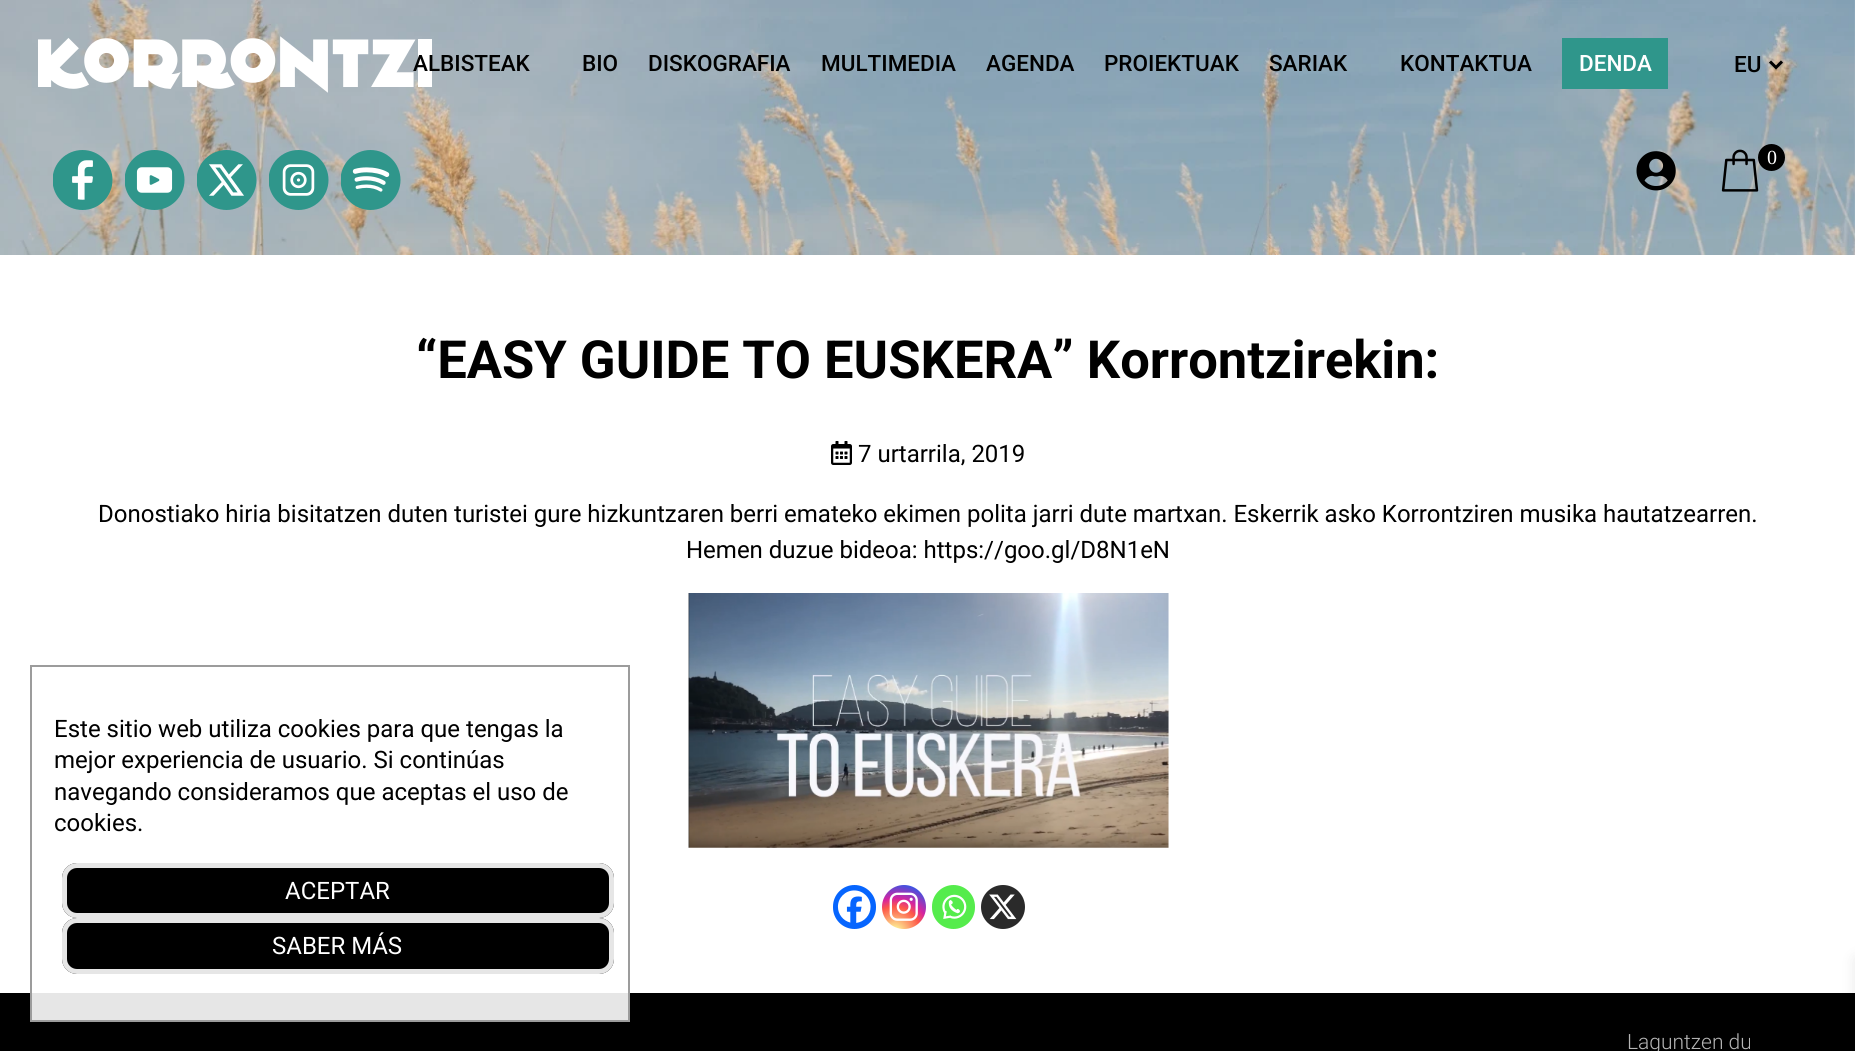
#include <cairo.h>
#include <math.h>
#include <stddef.h>


static void round_rect(cairo_t *cr, double x, double y, double w, double h, double r) {
    cairo_new_sub_path(cr);
    cairo_arc(cr, x + w - r, y + h - r, r, 0, M_PI / 2);
    cairo_arc(cr, x + r, y + h - r, r, M_PI / 2, M_PI);
    cairo_arc(cr, x + r, y + r, r, M_PI, 1.5 * M_PI);
    cairo_arc(cr, x + w - r, y + r, r, 1.5 * M_PI, 2 * M_PI);
    cairo_close_path(cr);
}

static void shadow(cairo_t *cr, double x, double y, double w, double h, double r, double blur, double alpha) {
    cairo_push_group_with_content(cr, CAIRO_CONTENT_ALPHA);
    cairo_set_operator(cr, CAIRO_OPERATOR_SOURCE);
    for (int i = 15; i >= -15 && fmin(w, h) + blur * i / 3 > 0; i -= 2) {
        double e = blur * i / 6;
        cairo_set_source_rgba(cr, 0, 0, 0, alpha * erfc((i - 1) / 8.5) / 2);
        round_rect(cr, x - e, y - e, w + 2 * e, h + 2 * e, fmax(0, fmin(r + e + blur * .6, fmin(w, h) / 2 + e)));
        cairo_fill(cr);
    }
    cairo_pattern_t *soft = cairo_pop_group(cr);
    cairo_mask(cr, soft);
    cairo_pattern_destroy(soft);
}

static void picture(cairo_t *cr, const char *path, double x, double y, double w, double h) {
    cairo_surface_t *image = cairo_image_surface_create_from_png(path);
    cairo_save(cr);
    cairo_set_source_surface(cr, image, x, y);
    cairo_rectangle(cr, x, y, w, h);
    cairo_fill(cr);
    cairo_restore(cr);
    cairo_surface_destroy(image);
}

int main(void) {
    cairo_surface_t *surface = cairo_image_surface_create(CAIRO_FORMAT_RGB24, 1855, 1051);
    cairo_t *cr = cairo_create(surface);
    cairo_font_options_t *options = cairo_font_options_create();
    cairo_font_options_set_hint_metrics(options, CAIRO_HINT_METRICS_OFF);
    cairo_font_options_set_hint_style(options, CAIRO_HINT_STYLE_NONE);
    cairo_set_font_options(cr, options);
    cairo_set_miter_limit(cr, 4);
    cairo_pattern_t *gradient;
    cairo_set_source_rgb(cr, 1, 1, 1);
    cairo_paint(cr);
    picture(cr, "img1.png", 0, 0, 1855, 255);
    picture(cr, "img2.png", 38, 36, 394, 57);
    cairo_select_font_face(cr, "Roboto Medium", CAIRO_FONT_SLANT_NORMAL, CAIRO_FONT_WEIGHT_NORMAL);
    cairo_set_font_size(cr, 22.5);
    cairo_set_source_rgb(cr, 0, 0, 0);
    cairo_move_to(cr, 413, 71);
    cairo_show_text(cr, "ALBISTEAK");
    cairo_move_to(cr, 582, 71);
    cairo_show_text(cr, "BIO");
    cairo_move_to(cr, 648, 71);
    cairo_show_text(cr, "DISKOGRAFIA");
    cairo_move_to(cr, 821, 71);
    cairo_show_text(cr, "MULTIMEDIA");
    cairo_move_to(cr, 986, 71);
    cairo_show_text(cr, "AGENDA");
    cairo_move_to(cr, 1104, 71);
    cairo_show_text(cr, "PROIEKTUAK");
    cairo_move_to(cr, 1269, 71);
    cairo_show_text(cr, "SARIAK");
    cairo_move_to(cr, 1400, 71);
    cairo_show_text(cr, "KONTAKTUA");
    cairo_set_source_rgb(cr, 0.184, 0.588, 0.545);
    cairo_rectangle(cr, 1562, 38, 106, 51);
    cairo_fill(cr);
    cairo_set_source_rgb(cr, 1, 1, 1);
    cairo_move_to(cr, 1579, 71);
    cairo_show_text(cr, "DENDA");
    cairo_new_path(cr);
    cairo_move_to(cr, 1770, 61.5);
    cairo_line_to(cr, 1776, 67.5);
    cairo_line_to(cr, 1782, 61.5);
    cairo_set_source_rgb(cr, 0, 0, 0);
    cairo_set_line_width(cr, 3);
    cairo_stroke(cr);
    cairo_move_to(cr, 1734, 72);
    cairo_show_text(cr, "EU");
    picture(cr, "img3.png", 53, 150, 60, 60);
    picture(cr, "img4.png", 125, 150, 60, 60);
    picture(cr, "img5.png", 197, 150, 60, 60);
    picture(cr, "img6.png", 269, 150, 60, 60);
    picture(cr, "img7.png", 341, 150, 60, 60);
    picture(cr, "img8.png", 1636, 151, 40, 40);
    picture(cr, "img9.png", 1721, 149, 38, 43);
    cairo_arc(cr, 1771.5, 157.5, 13.5, 0, 2 * M_PI);
    cairo_fill(cr);
    cairo_select_font_face(cr, "Liberation Serif", CAIRO_FONT_SLANT_NORMAL, CAIRO_FONT_WEIGHT_NORMAL);
    cairo_set_font_size(cr, 20);
    cairo_set_source_rgb(cr, 1, 1, 1);
    cairo_move_to(cr, 1767, 164);
    cairo_show_text(cr, "0");
    cairo_select_font_face(cr, "Roboto", CAIRO_FONT_SLANT_NORMAL, CAIRO_FONT_WEIGHT_BOLD);
    cairo_set_font_size(cr, 52.5);
    cairo_set_source_rgb(cr, 0, 0, 0);
    cairo_move_to(cr, 416, 378);
    cairo_show_text(cr, "“EASY GUIDE TO EUSKERA” Korrontzirekin:");
    picture(cr, "img10.png", 831, 441, 21, 24);
    cairo_select_font_face(cr, "Roboto", CAIRO_FONT_SLANT_NORMAL, CAIRO_FONT_WEIGHT_NORMAL);
    cairo_set_font_size(cr, 24);
    cairo_move_to(cr, 858, 462);
    cairo_show_text(cr, "7 urtarrila, 2019");
    cairo_move_to(cr, 98, 522);
    cairo_show_text(cr, "Donostiako hiria bisitatzen duten turistei gure hizkuntzaren berri emateko ekimen polita jarri dute martxan. Eskerrik asko Korrontziren musika hautatzearren.");
    cairo_move_to(cr, 686, 558);
    cairo_show_text(cr, "Hemen duzue bideoa: https://goo.gl/D8N1eN");
    picture(cr, "img11.png", 688, 593, 481, 255);
    cairo_set_source_rgb(cr, 0.027, 0.396, 0.996);
    round_rect(cr, 833, 885, 43, 44, 21.5);
    cairo_fill(cr);
    picture(cr, "img12.png", 837, 890, 34, 33);
    gradient = cairo_pattern_create_radial(895, 932, 0, 895, 932, 56);
    cairo_pattern_add_color_stop_rgba(gradient, 0, 0.992, 0.957, 0.592, 1);
    cairo_pattern_add_color_stop_rgba(gradient, 0.05, 0.992, 0.957, 0.592, 1);
    cairo_pattern_add_color_stop_rgba(gradient, 0.45, 0.992, 0.349, 0.286, 1);
    cairo_pattern_add_color_stop_rgba(gradient, 0.6, 0.839, 0.141, 0.624, 1);
    cairo_pattern_add_color_stop_rgba(gradient, 0.9, 0.157, 0.353, 0.922, 1);
    cairo_set_source(cr, gradient);
    cairo_pattern_destroy(gradient);
    cairo_arc(cr, 904, 907, 22, 0, 2 * M_PI);
    cairo_fill(cr);
    picture(cr, "img13.png", 889, 892, 29, 29);
    cairo_set_source_rgb(cr, 0.333, 0.922, 0.298);
    round_rect(cr, 932, 885, 43, 44, 21.5);
    cairo_fill(cr);
    picture(cr, "img14.png", 942, 894, 25, 25);
    cairo_set_source_rgb(cr, 0.165, 0.165, 0.165);
    cairo_arc(cr, 1003, 907, 22, 0, 2 * M_PI);
    cairo_fill(cr);
    picture(cr, "img15.png", 989, 894, 28, 26);
    cairo_set_source_rgb(cr, 0, 0, 0);
    cairo_rectangle(cr, 0, 993, 1855, 58);
    cairo_fill(cr);
    cairo_set_source_rgb(cr, 0.902, 0.902, 0.902);
    cairo_rectangle(cr, 32, 993, 596, 27);
    cairo_fill(cr);
    cairo_rectangle(cr, 31, 666, 598, 355);
    cairo_set_source_rgb(cr, 0.612, 0.612, 0.612);
    cairo_set_line_width(cr, 2);
    cairo_stroke(cr);
    cairo_set_source_rgb(cr, 0, 0, 0);
    cairo_move_to(cr, 54, 737);
    cairo_show_text(cr, "Este sitio web utiliza cookies para que tengas la");
    cairo_move_to(cr, 54, 768);
    cairo_show_text(cr, "mejor experiencia de usuario. Si continúas");
    cairo_move_to(cr, 54, 800);
    cairo_show_text(cr, "navegando consideramos que aceptas el uso de");
    cairo_move_to(cr, 54, 831);
    cairo_show_text(cr, "cookies.");
    round_rect(cr, 62, 863, 552, 55, 15);
    cairo_fill(cr);
    round_rect(cr, 64.5, 865.5, 547, 50, 12.5);
    cairo_set_source_rgba(cr, 1, 1, 1, 0.9);
    cairo_set_line_width(cr, 5);
    cairo_stroke(cr);
    cairo_set_source_rgb(cr, 1, 1, 1);
    cairo_move_to(cr, 285, 899);
    cairo_show_text(cr, "ACEPTAR");
    cairo_set_source_rgb(cr, 0, 0, 0);
    round_rect(cr, 62, 918, 552, 56, 15);
    cairo_fill(cr);
    round_rect(cr, 64.5, 920.5, 547, 51, 12.5);
    cairo_set_source_rgba(cr, 1, 1, 1, 0.9);
    cairo_stroke(cr);
    cairo_set_source_rgb(cr, 1, 1, 1);
    cairo_move_to(cr, 272, 954);
    cairo_show_text(cr, "SABER MÁS");
    cairo_select_font_face(cr, "Roboto Light", CAIRO_FONT_SLANT_NORMAL, CAIRO_FONT_WEIGHT_NORMAL);
    cairo_set_font_size(cr, 21);
    cairo_set_source_rgb(cr, 0.71, 0.71, 0.71);
    cairo_move_to(cr, 1627, 1049);
    cairo_show_text(cr, "Laguntzen du");
    cairo_set_source_rgb(cr, 0, 0, 0);
    shadow(cr, 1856, 959, 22, 91, 0, 7.5, 0.1);
    cairo_surface_write_to_png(surface, "page.png");
    cairo_font_options_destroy(options);
    cairo_destroy(cr);
    cairo_surface_destroy(surface);
    return 0;
}
